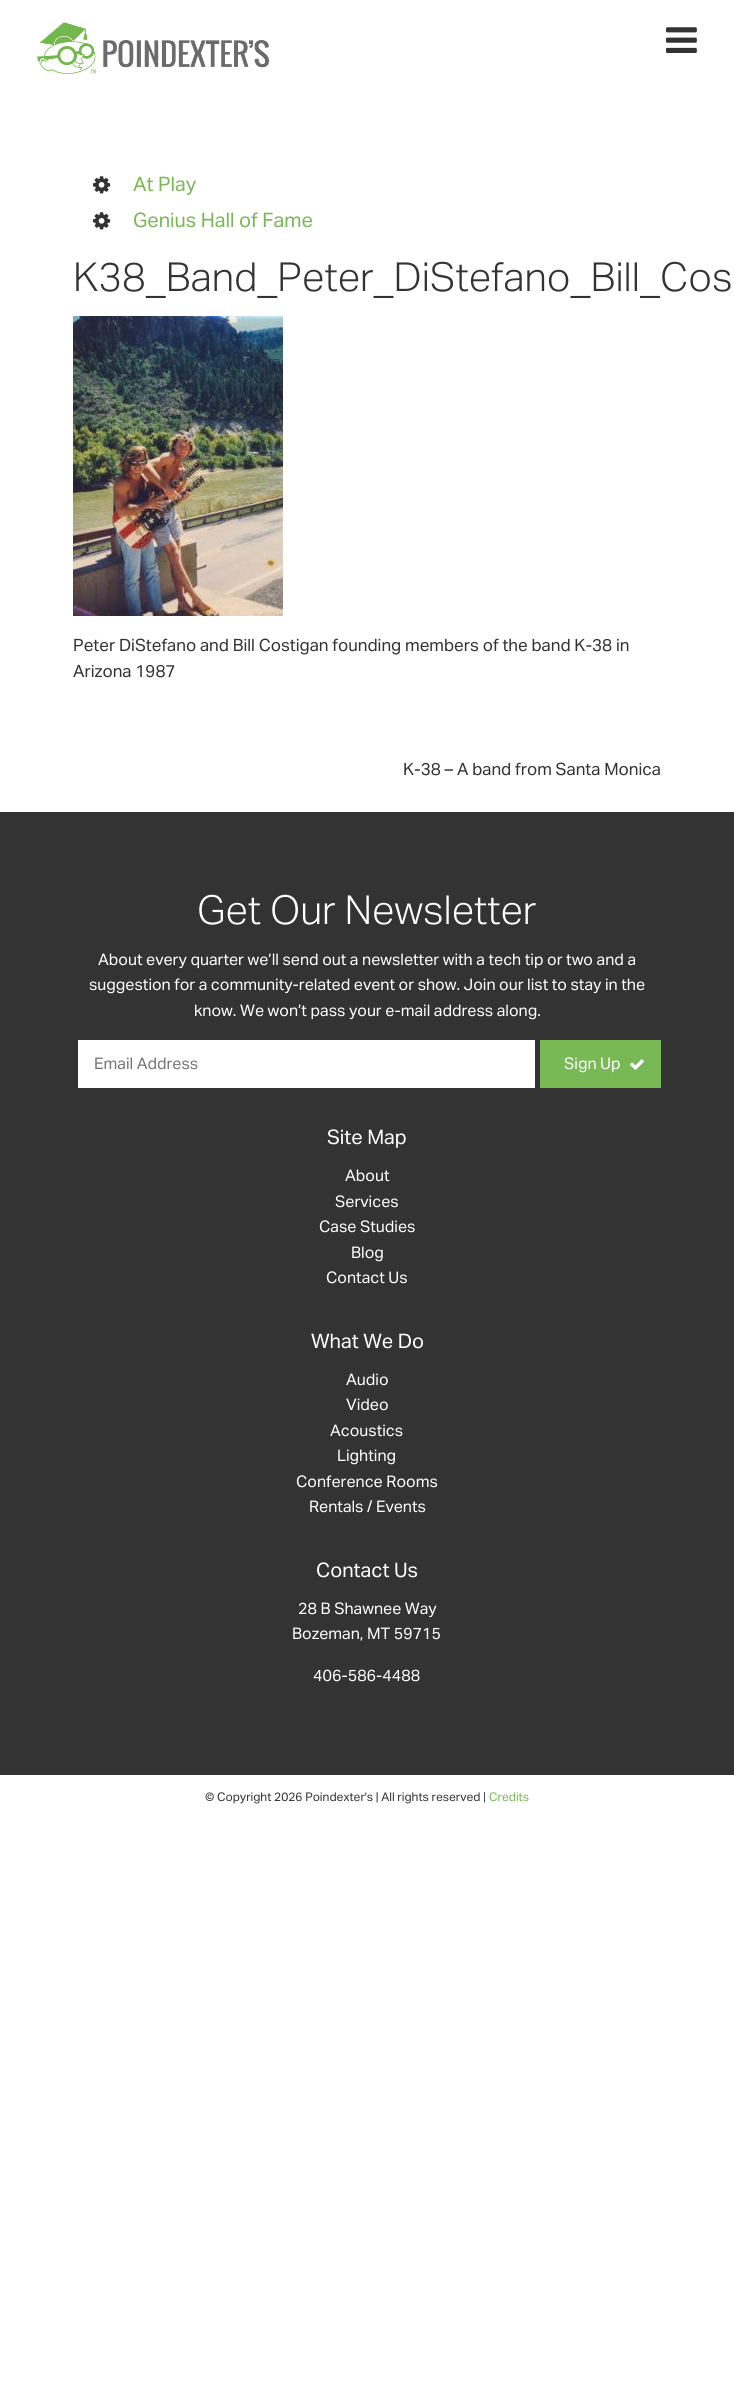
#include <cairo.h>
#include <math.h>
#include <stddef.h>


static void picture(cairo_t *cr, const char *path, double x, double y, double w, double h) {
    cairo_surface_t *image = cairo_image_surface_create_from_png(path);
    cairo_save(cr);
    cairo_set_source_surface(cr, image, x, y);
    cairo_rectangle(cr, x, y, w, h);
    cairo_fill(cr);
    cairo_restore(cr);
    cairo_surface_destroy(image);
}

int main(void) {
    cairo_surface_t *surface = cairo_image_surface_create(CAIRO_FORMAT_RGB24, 734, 2393);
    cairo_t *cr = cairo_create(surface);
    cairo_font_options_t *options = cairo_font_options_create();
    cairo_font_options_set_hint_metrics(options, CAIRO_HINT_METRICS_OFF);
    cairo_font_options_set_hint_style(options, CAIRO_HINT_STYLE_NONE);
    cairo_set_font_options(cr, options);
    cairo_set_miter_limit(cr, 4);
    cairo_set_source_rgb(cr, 1, 1, 1);
    cairo_paint(cr);
    picture(cr, "img1.png", 37, 22, 232, 52);
    picture(cr, "img2.png", 666, 27, 31, 26);
    picture(cr, "img3.png", 93, 176, 18, 18);
    cairo_select_font_face(cr, "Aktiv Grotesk", CAIRO_FONT_SLANT_NORMAL, CAIRO_FONT_WEIGHT_NORMAL);
    cairo_set_font_size(cr, 20);
    cairo_set_source_rgb(cr, 0.471, 0.722, 0.333);
    cairo_move_to(cr, 133, 191);
    cairo_show_text(cr, "At Play");
    picture(cr, "img3.png", 93, 212, 18, 18);
    cairo_move_to(cr, 133, 227);
    cairo_show_text(cr, "Genius Hall of Fame");
    cairo_select_font_face(cr, "Aktiv Grotesk Light", CAIRO_FONT_SLANT_NORMAL, CAIRO_FONT_WEIGHT_NORMAL);
    cairo_set_font_size(cr, 40);
    cairo_set_source_rgb(cr, 0.2, 0.2, 0.2);
    cairo_move_to(cr, 73, 291);
    cairo_show_text(cr, "K38_Band_Peter_DiStefano_Bill_Cos");
    picture(cr, "img4.png", 73, 316, 210, 300);
    cairo_select_font_face(cr, "Aktiv Grotesk", CAIRO_FONT_SLANT_NORMAL, CAIRO_FONT_WEIGHT_NORMAL);
    cairo_set_font_size(cr, 17);
    cairo_move_to(cr, 73, 651);
    cairo_show_text(cr, "Peter DiStefano and Bill Costigan founding members of the band K-38 in");
    cairo_move_to(cr, 73, 677);
    cairo_show_text(cr, "Arizona 1987");
    cairo_move_to(cr, 403, 775);
    cairo_show_text(cr, "K-38 – A band from Santa Monica");
    cairo_rectangle(cr, 0, 812, 734, 963);
    cairo_fill(cr);
    cairo_select_font_face(cr, "Aktiv Grotesk Light", CAIRO_FONT_SLANT_NORMAL, CAIRO_FONT_WEIGHT_NORMAL);
    cairo_set_font_size(cr, 40);
    cairo_set_source_rgb(cr, 1, 1, 1);
    cairo_move_to(cr, 197, 924);
    cairo_show_text(cr, "Get Our Newsletter");
    cairo_select_font_face(cr, "Aktiv Grotesk", CAIRO_FONT_SLANT_NORMAL, CAIRO_FONT_WEIGHT_NORMAL);
    cairo_set_font_size(cr, 16);
    cairo_move_to(cr, 98, 965);
    cairo_show_text(cr, "About every quarter we’ll send out a newsletter with a tech tip or two and a");
    cairo_move_to(cr, 89, 990);
    cairo_show_text(cr, "suggestion for a community-related event or show. Join our list to stay in the");
    cairo_move_to(cr, 194, 1016);
    cairo_show_text(cr, "know. We won’t pass your e-mail address along.");
    cairo_rectangle(cr, 78, 1040, 457, 48);
    cairo_fill(cr);
    cairo_set_source_rgb(cr, 0.459, 0.459, 0.459);
    cairo_move_to(cr, 94, 1069);
    cairo_show_text(cr, "Email Address");
    cairo_set_source_rgb(cr, 0.471, 0.722, 0.333);
    cairo_rectangle(cr, 540, 1040, 121, 48);
    cairo_fill(cr);
    cairo_set_source_rgb(cr, 1, 1, 1);
    cairo_move_to(cr, 564, 1069);
    cairo_show_text(cr, "Sign Up");
    picture(cr, "img5.png", 630, 1059, 14, 11);
    cairo_set_font_size(cr, 20);
    cairo_move_to(cr, 327, 1144);
    cairo_show_text(cr, "Site Map");
    cairo_set_font_size(cr, 16);
    cairo_move_to(cr, 345, 1181);
    cairo_show_text(cr, "About");
    cairo_move_to(cr, 335, 1207);
    cairo_show_text(cr, "Services");
    cairo_move_to(cr, 319, 1232);
    cairo_show_text(cr, "Case Studies");
    cairo_move_to(cr, 351, 1258);
    cairo_show_text(cr, "Blog");
    cairo_move_to(cr, 326, 1283);
    cairo_show_text(cr, "Contact Us");
    cairo_set_font_size(cr, 20);
    cairo_move_to(cr, 311, 1348);
    cairo_show_text(cr, "What We Do");
    cairo_set_font_size(cr, 16);
    cairo_move_to(cr, 346, 1385);
    cairo_show_text(cr, "Audio");
    cairo_move_to(cr, 346, 1410);
    cairo_show_text(cr, "Video");
    cairo_move_to(cr, 330, 1436);
    cairo_show_text(cr, "Acoustics");
    cairo_move_to(cr, 337, 1461);
    cairo_show_text(cr, "Lighting");
    cairo_move_to(cr, 296, 1487);
    cairo_show_text(cr, "Conference Rooms");
    cairo_move_to(cr, 309, 1512);
    cairo_show_text(cr, "Rentals / Events");
    cairo_set_font_size(cr, 20);
    cairo_move_to(cr, 316, 1577);
    cairo_show_text(cr, "Contact Us");
    cairo_set_font_size(cr, 16);
    cairo_move_to(cr, 298, 1614);
    cairo_show_text(cr, "28 B Shawnee Way");
    cairo_move_to(cr, 292, 1639);
    cairo_show_text(cr, "Bozeman, MT 59715");
    cairo_move_to(cr, 313, 1681);
    cairo_show_text(cr, "406-586-4488");
    cairo_set_font_size(cr, 12);
    cairo_set_source_rgb(cr, 0.2, 0.2, 0.2);
    cairo_move_to(cr, 205, 1801);
    cairo_show_text(cr, "© Copyright 2026 Poindexter's | All rights reserved |");
    cairo_set_source_rgb(cr, 0.471, 0.722, 0.333);
    cairo_move_to(cr, 489, 1801);
    cairo_show_text(cr, "Credits");
    cairo_surface_write_to_png(surface, "page.png");
    cairo_font_options_destroy(options);
    cairo_destroy(cr);
    cairo_surface_destroy(surface);
    return 0;
}
